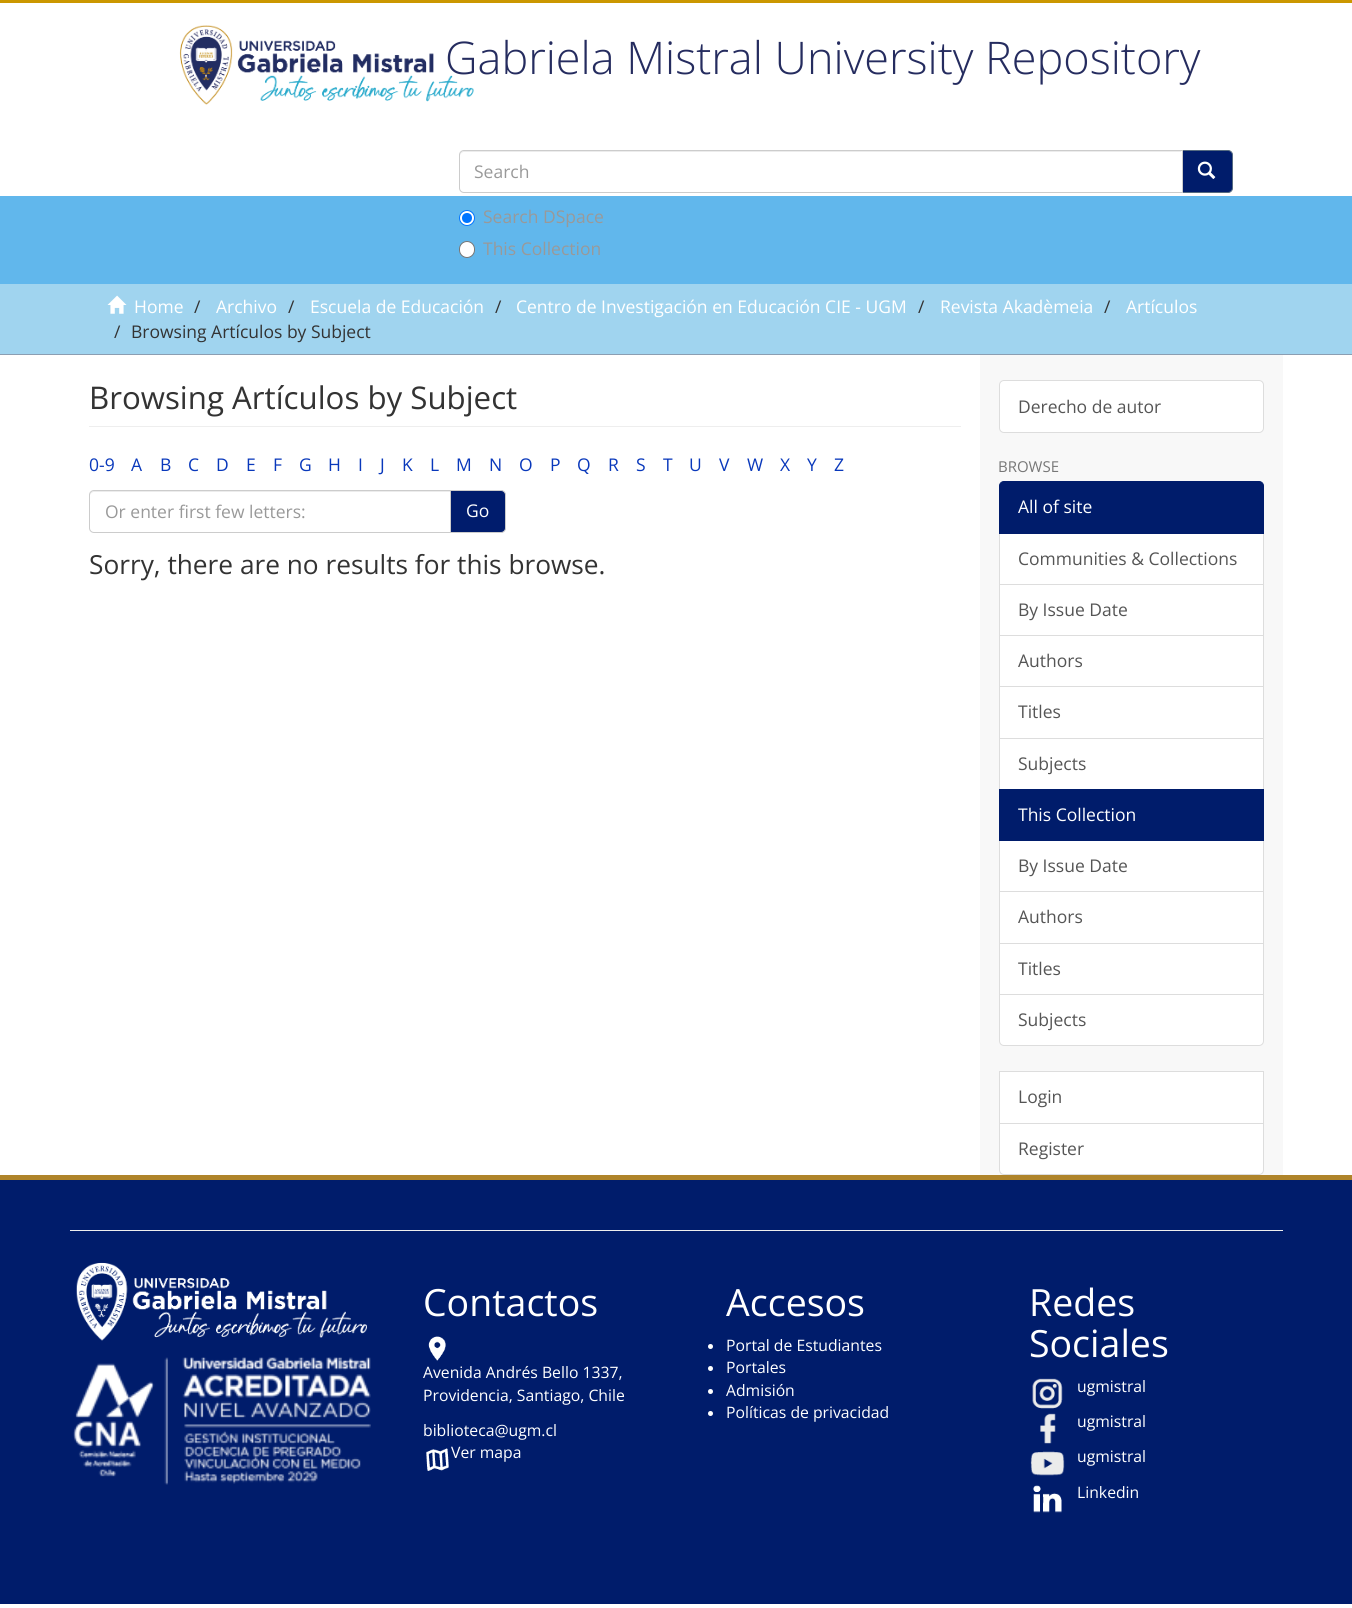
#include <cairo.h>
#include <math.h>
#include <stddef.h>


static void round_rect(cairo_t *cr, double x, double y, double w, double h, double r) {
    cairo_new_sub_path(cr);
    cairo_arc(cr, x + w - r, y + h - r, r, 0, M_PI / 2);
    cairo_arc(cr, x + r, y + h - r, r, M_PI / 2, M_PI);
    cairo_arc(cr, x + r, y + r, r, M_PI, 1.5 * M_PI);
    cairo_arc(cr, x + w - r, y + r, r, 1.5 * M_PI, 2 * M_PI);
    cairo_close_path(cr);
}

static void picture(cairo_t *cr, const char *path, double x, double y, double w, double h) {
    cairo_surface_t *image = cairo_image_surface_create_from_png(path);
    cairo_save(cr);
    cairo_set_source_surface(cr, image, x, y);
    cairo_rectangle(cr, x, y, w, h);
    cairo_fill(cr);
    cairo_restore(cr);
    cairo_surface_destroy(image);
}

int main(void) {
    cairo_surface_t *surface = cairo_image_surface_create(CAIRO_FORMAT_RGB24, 1352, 1608);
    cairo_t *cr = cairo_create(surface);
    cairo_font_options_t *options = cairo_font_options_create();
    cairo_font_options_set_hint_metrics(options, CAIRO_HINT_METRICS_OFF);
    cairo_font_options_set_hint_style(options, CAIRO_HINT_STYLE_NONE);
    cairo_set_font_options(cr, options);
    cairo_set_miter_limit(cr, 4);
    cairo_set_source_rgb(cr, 1, 1, 1);
    cairo_paint(cr);
    cairo_set_source_rgb(cr, 0.38, 0.718, 0.922);
    cairo_rectangle(cr, 0, 196, 1352, 88);
    cairo_fill(cr);
    cairo_set_source_rgb(cr, 0.796, 0.592, 0);
    cairo_rectangle(cr, 0, 0, 1352, 3);
    cairo_fill(cr);
    picture(cr, "img1.png", 179, 25, 295, 80);
    cairo_select_font_face(cr, "Open Sans Light", CAIRO_FONT_SLANT_NORMAL, CAIRO_FONT_WEIGHT_NORMAL);
    cairo_set_font_size(cr, 45);
    cairo_set_source_rgb(cr, 0.145, 0.173, 0.373);
    cairo_move_to(cr, 445, 74);
    cairo_show_text(cr, "Gabriela Mistral University Repository");
    cairo_set_source_rgb(cr, 0, 0.11, 0.42);
    cairo_new_path(cr);
    cairo_move_to(cr, 1181.5, 150.5);
    cairo_line_to(cr, 1228, 150.5);
    cairo_curve_to(cr, 1230.5, 150.5, 1232.5, 152.5, 1232.5, 155);
    cairo_line_to(cr, 1232.5, 188);
    cairo_curve_to(cr, 1232.5, 190.5, 1230.5, 192.5, 1228, 192.5);
    cairo_line_to(cr, 1181.5, 192.5);
    cairo_close_path(cr);
    cairo_fill_preserve(cr);
    cairo_set_source_rgb(cr, 0.337, 0.42, 0.506);
    cairo_set_line_width(cr, 1);
    cairo_stroke(cr);
    cairo_set_source_rgb(cr, 1, 1, 1);
    cairo_new_path(cr);
    cairo_move_to(cr, 464, 150);
    cairo_line_to(cr, 1183, 150);
    cairo_line_to(cr, 1183, 193);
    cairo_line_to(cr, 464, 193);
    cairo_curve_to(cr, 461, 193, 459, 191, 459, 188);
    cairo_line_to(cr, 459, 155);
    cairo_curve_to(cr, 459, 152, 461, 150, 464, 150);
    cairo_close_path(cr);
    cairo_fill(cr);
    cairo_set_source_rgb(cr, 0.925, 0.925, 0.925);
    cairo_new_path(cr);
    cairo_move_to(cr, 464, 152);
    cairo_line_to(cr, 1181, 152);
    cairo_line_to(cr, 1181, 151);
    cairo_line_to(cr, 464, 151);
    cairo_curve_to(cr, 462, 151, 460, 153, 460, 155);
    cairo_line_to(cr, 460, 156);
    cairo_curve_to(cr, 460, 154, 462, 152, 464, 152);
    cairo_close_path(cr);
    cairo_fill(cr);
    cairo_new_path(cr);
    cairo_move_to(cr, 464, 150.5);
    cairo_line_to(cr, 1182.5, 150.5);
    cairo_line_to(cr, 1182.5, 192.5);
    cairo_line_to(cr, 464, 192.5);
    cairo_curve_to(cr, 461.5, 192.5, 459.5, 190.5, 459.5, 188);
    cairo_line_to(cr, 459.5, 155);
    cairo_curve_to(cr, 459.5, 152.5, 461.5, 150.5, 464, 150.5);
    cairo_close_path(cr);
    cairo_set_source_rgb(cr, 0.8, 0.8, 0.8);
    cairo_stroke(cr);
    cairo_select_font_face(cr, "Open Sans", CAIRO_FONT_SLANT_NORMAL, CAIRO_FONT_WEIGHT_NORMAL);
    cairo_set_font_size(cr, 17.5);
    cairo_set_source_rgb(cr, 0.6, 0.6, 0.6);
    cairo_move_to(cr, 474, 178);
    cairo_show_text(cr, "Search");
    picture(cr, "img2.png", 1197, 161, 19, 18);
    cairo_set_source_rgb(cr, 1, 1, 1);
    cairo_arc(cr, 467, 218, 7.5, 0, 2 * M_PI);
    cairo_fill_preserve(cr);
    cairo_set_source_rgb(cr, 0, 0.459, 1);
    cairo_stroke(cr);
    cairo_arc(cr, 467, 218, 5, 0, 2 * M_PI);
    cairo_fill(cr);
    cairo_set_source_rgb(cr, 0.6, 0.6, 0.6);
    cairo_move_to(cr, 483, 223);
    cairo_show_text(cr, "Search DSpace");
    cairo_set_source_rgb(cr, 1, 1, 1);
    round_rect(cr, 459.5, 241.5, 15, 16, 7.5);
    cairo_fill_preserve(cr);
    cairo_set_source_rgb(cr, 0.463, 0.463, 0.463);
    cairo_stroke(cr);
    cairo_set_source_rgb(cr, 0.6, 0.6, 0.6);
    cairo_move_to(cr, 483, 255);
    cairo_show_text(cr, "This Collection");
    cairo_set_source_rgb(cr, 0.627, 0.831, 0.937);
    cairo_rectangle(cr, 0, 284, 1352, 70);
    cairo_fill(cr);
    cairo_set_source_rgb(cr, 0.545, 0.62, 0.698);
    cairo_rectangle(cr, 0, 354, 1352, 1);
    cairo_fill(cr);
    picture(cr, "img3.png", 107, 295, 20, 19);
    cairo_set_source_rgb(cr, 1, 1, 1);
    cairo_move_to(cr, 134, 313);
    cairo_show_text(cr, "Home");
    cairo_set_source_rgb(cr, 0.2, 0.2, 0.2);
    cairo_move_to(cr, 194, 313);
    cairo_show_text(cr, "/");
    cairo_set_source_rgb(cr, 1, 1, 1);
    cairo_move_to(cr, 216, 313);
    cairo_show_text(cr, "Archivo");
    cairo_set_source_rgb(cr, 0.2, 0.2, 0.2);
    cairo_move_to(cr, 288, 313);
    cairo_show_text(cr, "/");
    cairo_set_source_rgb(cr, 1, 1, 1);
    cairo_move_to(cr, 310, 313);
    cairo_show_text(cr, "Escuela de Educación");
    cairo_set_source_rgb(cr, 0.2, 0.2, 0.2);
    cairo_move_to(cr, 495, 313);
    cairo_show_text(cr, "/");
    cairo_set_source_rgb(cr, 1, 1, 1);
    cairo_move_to(cr, 516, 313);
    cairo_show_text(cr, "Centro de Investigación en Educación CIE - UGM");
    cairo_set_source_rgb(cr, 0.2, 0.2, 0.2);
    cairo_move_to(cr, 918, 313);
    cairo_show_text(cr, "/");
    cairo_set_source_rgb(cr, 1, 1, 1);
    cairo_move_to(cr, 940, 313);
    cairo_show_text(cr, "Revista Akadèmeia");
    cairo_set_source_rgb(cr, 0.2, 0.2, 0.2);
    cairo_move_to(cr, 1104, 313);
    cairo_show_text(cr, "/");
    cairo_set_source_rgb(cr, 1, 1, 1);
    cairo_move_to(cr, 1126, 313);
    cairo_show_text(cr, "Artículos");
    cairo_set_source_rgb(cr, 0.2, 0.2, 0.2);
    cairo_move_to(cr, 114, 338);
    cairo_show_text(cr, "/");
    cairo_move_to(cr, 131, 338);
    cairo_show_text(cr, "Browsing Artículos by Subject");
    cairo_set_source_rgb(cr, 0.969, 0.969, 0.969);
    cairo_rectangle(cr, 980, 355, 303, 820);
    cairo_fill(cr);
    cairo_set_source_rgb(cr, 0.933, 0.933, 0.933);
    cairo_rectangle(cr, 89, 426, 872, 1);
    cairo_fill(cr);
    cairo_set_font_size(cr, 31.25);
    cairo_set_source_rgb(cr, 0.2, 0.2, 0.2);
    cairo_move_to(cr, 89, 409);
    cairo_show_text(cr, "Browsing Artículos by Subject");
    cairo_set_font_size(cr, 17.5);
    cairo_set_source_rgb(cr, 0.039, 0.22, 0.733);
    cairo_move_to(cr, 89, 471);
    cairo_show_text(cr, "0-9");
    cairo_move_to(cr, 131, 471);
    cairo_show_text(cr, "A");
    cairo_move_to(cr, 160, 471);
    cairo_show_text(cr, "B");
    cairo_move_to(cr, 188, 471);
    cairo_show_text(cr, "C");
    cairo_move_to(cr, 216, 471);
    cairo_show_text(cr, "D");
    cairo_move_to(cr, 246, 471);
    cairo_show_text(cr, "E");
    cairo_move_to(cr, 273, 471);
    cairo_show_text(cr, "F");
    cairo_move_to(cr, 299, 471);
    cairo_show_text(cr, "G");
    cairo_move_to(cr, 328, 471);
    cairo_show_text(cr, "H");
    cairo_move_to(cr, 358, 471);
    cairo_show_text(cr, "I");
    cairo_move_to(cr, 380, 471);
    cairo_show_text(cr, "J");
    cairo_move_to(cr, 402, 471);
    cairo_show_text(cr, "K");
    cairo_move_to(cr, 430, 471);
    cairo_show_text(cr, "L");
    cairo_move_to(cr, 456, 471);
    cairo_show_text(cr, "M");
    cairo_move_to(cr, 489, 471);
    cairo_show_text(cr, "N");
    cairo_move_to(cr, 519, 471);
    cairo_show_text(cr, "O");
    cairo_move_to(cr, 550, 471);
    cairo_show_text(cr, "P");
    cairo_move_to(cr, 577, 471);
    cairo_show_text(cr, "Q");
    cairo_move_to(cr, 608, 471);
    cairo_show_text(cr, "R");
    cairo_move_to(cr, 636, 471);
    cairo_show_text(cr, "S");
    cairo_move_to(cr, 663, 471);
    cairo_show_text(cr, "T");
    cairo_move_to(cr, 689, 471);
    cairo_show_text(cr, "U");
    cairo_move_to(cr, 719, 471);
    cairo_show_text(cr, "V");
    cairo_move_to(cr, 747, 471);
    cairo_show_text(cr, "W");
    cairo_move_to(cr, 780, 471);
    cairo_show_text(cr, "X");
    cairo_move_to(cr, 807, 471);
    cairo_show_text(cr, "Y");
    cairo_move_to(cr, 834, 471);
    cairo_show_text(cr, "Z");
    cairo_set_source_rgb(cr, 0, 0.11, 0.427);
    cairo_new_path(cr);
    cairo_move_to(cr, 450.5, 490.5);
    cairo_line_to(cr, 501, 490.5);
    cairo_curve_to(cr, 503.5, 490.5, 505.5, 492.5, 505.5, 495);
    cairo_line_to(cr, 505.5, 528);
    cairo_curve_to(cr, 505.5, 530.5, 503.5, 532.5, 501, 532.5);
    cairo_line_to(cr, 450.5, 532.5);
    cairo_close_path(cr);
    cairo_fill_preserve(cr);
    cairo_set_source_rgb(cr, 0.8, 0.8, 0.8);
    cairo_stroke(cr);
    cairo_set_source_rgb(cr, 1, 1, 1);
    cairo_new_path(cr);
    cairo_move_to(cr, 94, 490);
    cairo_line_to(cr, 451, 490);
    cairo_line_to(cr, 451, 533);
    cairo_line_to(cr, 94, 533);
    cairo_curve_to(cr, 91, 533, 89, 531, 89, 528);
    cairo_line_to(cr, 89, 495);
    cairo_curve_to(cr, 89, 492, 91, 490, 94, 490);
    cairo_close_path(cr);
    cairo_fill(cr);
    cairo_set_source_rgb(cr, 0.925, 0.925, 0.925);
    cairo_new_path(cr);
    cairo_move_to(cr, 94, 492);
    cairo_line_to(cr, 450, 492);
    cairo_line_to(cr, 450, 491);
    cairo_line_to(cr, 94, 491);
    cairo_curve_to(cr, 91, 491, 90, 493, 90, 496);
    cairo_curve_to(cr, 90, 494, 92, 492, 94, 492);
    cairo_close_path(cr);
    cairo_fill(cr);
    cairo_new_path(cr);
    cairo_move_to(cr, 94, 490.5);
    cairo_line_to(cr, 450.5, 490.5);
    cairo_line_to(cr, 450.5, 532.5);
    cairo_line_to(cr, 94, 532.5);
    cairo_curve_to(cr, 91.5, 532.5, 89.5, 530.5, 89.5, 528);
    cairo_line_to(cr, 89.5, 495);
    cairo_curve_to(cr, 89.5, 492.5, 91.5, 490.5, 94, 490.5);
    cairo_close_path(cr);
    cairo_set_source_rgb(cr, 0.8, 0.8, 0.8);
    cairo_stroke(cr);
    cairo_set_source_rgb(cr, 0.6, 0.6, 0.6);
    cairo_move_to(cr, 105, 518);
    cairo_show_text(cr, "Or enter first few letters:");
    cairo_set_source_rgb(cr, 1, 1, 1);
    cairo_move_to(cr, 466, 517);
    cairo_show_text(cr, "Go");
    cairo_set_font_size(cr, 26.25);
    cairo_set_source_rgb(cr, 0.2, 0.2, 0.2);
    cairo_move_to(cr, 89, 574);
    cairo_show_text(cr, "Sorry, there are no results for this browse.");
    cairo_set_source_rgb(cr, 1, 1, 1);
    round_rect(cr, 999.5, 380.5, 264, 52, 4.5);
    cairo_fill_preserve(cr);
    cairo_set_source_rgb(cr, 0.867, 0.867, 0.867);
    cairo_stroke(cr);
    cairo_set_font_size(cr, 17.5);
    cairo_set_source_rgb(cr, 0.333, 0.333, 0.333);
    cairo_move_to(cr, 1018, 413);
    cairo_show_text(cr, "Derecho de autor");
    cairo_set_font_size(cr, 15);
    cairo_set_source_rgb(cr, 0.467, 0.467, 0.467);
    cairo_move_to(cr, 998, 472);
    cairo_show_text(cr, "BROWSE");
    cairo_set_source_rgb(cr, 1, 1, 1);
    cairo_rectangle(cr, 999.5, 533.5, 264, 51);
    cairo_fill_preserve(cr);
    cairo_set_source_rgb(cr, 0.867, 0.867, 0.867);
    cairo_stroke(cr);
    cairo_set_source_rgb(cr, 0, 0.11, 0.42);
    cairo_new_path(cr);
    cairo_move_to(cr, 1004, 481.5);
    cairo_line_to(cr, 1259, 481.5);
    cairo_curve_to(cr, 1261.5, 481.5, 1263.5, 483.5, 1263.5, 486);
    cairo_line_to(cr, 1263.5, 533.5);
    cairo_line_to(cr, 999.5, 533.5);
    cairo_line_to(cr, 999.5, 486);
    cairo_curve_to(cr, 999.5, 483.5, 1001.5, 481.5, 1004, 481.5);
    cairo_close_path(cr);
    cairo_fill_preserve(cr);
    cairo_stroke(cr);
    cairo_set_font_size(cr, 17.5);
    cairo_set_source_rgb(cr, 1, 1, 1);
    cairo_move_to(cr, 1018, 513);
    cairo_show_text(cr, "All of site");
    cairo_set_source_rgb(cr, 0.333, 0.333, 0.333);
    cairo_move_to(cr, 1018, 565);
    cairo_show_text(cr, "Communities & Collections");
    cairo_set_source_rgb(cr, 1, 1, 1);
    cairo_rectangle(cr, 999.5, 584.5, 264, 51);
    cairo_fill_preserve(cr);
    cairo_set_source_rgb(cr, 0.867, 0.867, 0.867);
    cairo_stroke(cr);
    cairo_set_source_rgb(cr, 0.333, 0.333, 0.333);
    cairo_move_to(cr, 1018, 616);
    cairo_show_text(cr, "By Issue Date");
    cairo_set_source_rgb(cr, 1, 1, 1);
    cairo_rectangle(cr, 1000, 636, 263, 50);
    cairo_fill(cr);
    cairo_rectangle(cr, 999.5, 635.5, 264, 52);
    cairo_set_source_rgb(cr, 0.867, 0.867, 0.867);
    cairo_stroke(cr);
    cairo_set_source_rgb(cr, 0.333, 0.333, 0.333);
    cairo_move_to(cr, 1018, 667);
    cairo_show_text(cr, "Authors");
    cairo_set_source_rgb(cr, 1, 1, 1);
    cairo_rectangle(cr, 999.5, 686.5, 264, 52);
    cairo_fill_preserve(cr);
    cairo_set_source_rgb(cr, 0.867, 0.867, 0.867);
    cairo_stroke(cr);
    cairo_set_source_rgb(cr, 0.333, 0.333, 0.333);
    cairo_move_to(cr, 1018, 718);
    cairo_show_text(cr, "Titles");
    cairo_set_source_rgb(cr, 1, 1, 1);
    cairo_rectangle(cr, 999.5, 738.5, 264, 51);
    cairo_fill_preserve(cr);
    cairo_set_source_rgb(cr, 0.867, 0.867, 0.867);
    cairo_stroke(cr);
    cairo_set_source_rgb(cr, 0.333, 0.333, 0.333);
    cairo_move_to(cr, 1018, 770);
    cairo_show_text(cr, "Subjects");
    cairo_set_source_rgb(cr, 1, 1, 1);
    cairo_rectangle(cr, 1000, 841, 263, 50);
    cairo_fill(cr);
    cairo_rectangle(cr, 999.5, 840.5, 264, 52);
    cairo_set_source_rgb(cr, 0.867, 0.867, 0.867);
    cairo_stroke(cr);
    cairo_set_source_rgb(cr, 0, 0.11, 0.42);
    cairo_rectangle(cr, 999, 789, 265, 52);
    cairo_fill(cr);
    cairo_set_source_rgb(cr, 1, 1, 1);
    cairo_move_to(cr, 1018, 821);
    cairo_show_text(cr, "This Collection");
    cairo_set_source_rgb(cr, 0.333, 0.333, 0.333);
    cairo_move_to(cr, 1018, 872);
    cairo_show_text(cr, "By Issue Date");
    cairo_set_source_rgb(cr, 1, 1, 1);
    cairo_rectangle(cr, 999.5, 891.5, 264, 52);
    cairo_fill_preserve(cr);
    cairo_set_source_rgb(cr, 0.867, 0.867, 0.867);
    cairo_stroke(cr);
    cairo_set_source_rgb(cr, 0.333, 0.333, 0.333);
    cairo_move_to(cr, 1018, 923);
    cairo_show_text(cr, "Authors");
    cairo_set_source_rgb(cr, 1, 1, 1);
    cairo_rectangle(cr, 999.5, 943.5, 264, 51);
    cairo_fill_preserve(cr);
    cairo_set_source_rgb(cr, 0.867, 0.867, 0.867);
    cairo_stroke(cr);
    cairo_set_source_rgb(cr, 0.333, 0.333, 0.333);
    cairo_move_to(cr, 1018, 975);
    cairo_show_text(cr, "Titles");
    cairo_set_source_rgb(cr, 1, 1, 1);
    cairo_new_path(cr);
    cairo_move_to(cr, 999.5, 994.5);
    cairo_line_to(cr, 1263.5, 994.5);
    cairo_line_to(cr, 1263.5, 1041);
    cairo_curve_to(cr, 1263.5, 1043.5, 1261.5, 1045.5, 1259, 1045.5);
    cairo_line_to(cr, 1004, 1045.5);
    cairo_curve_to(cr, 1001.5, 1045.5, 999.5, 1043.5, 999.5, 1041);
    cairo_close_path(cr);
    cairo_fill_preserve(cr);
    cairo_set_source_rgb(cr, 0.867, 0.867, 0.867);
    cairo_stroke(cr);
    cairo_set_source_rgb(cr, 0.333, 0.333, 0.333);
    cairo_move_to(cr, 1018, 1026);
    cairo_show_text(cr, "Subjects");
    cairo_set_source_rgb(cr, 1, 1, 1);
    cairo_rectangle(cr, 999.5, 1071.5, 264, 52);
    cairo_fill_preserve(cr);
    cairo_set_source_rgb(cr, 0.867, 0.867, 0.867);
    cairo_stroke(cr);
    cairo_set_source_rgb(cr, 0.333, 0.333, 0.333);
    cairo_move_to(cr, 1018, 1103);
    cairo_show_text(cr, "Login");
    cairo_set_source_rgb(cr, 1, 1, 1);
    cairo_new_path(cr);
    cairo_move_to(cr, 999.5, 1123.5);
    cairo_line_to(cr, 1263.5, 1123.5);
    cairo_line_to(cr, 1263.5, 1170);
    cairo_curve_to(cr, 1263.5, 1172.5, 1261.5, 1174.5, 1259, 1174.5);
    cairo_line_to(cr, 1004, 1174.5);
    cairo_curve_to(cr, 1001.5, 1174.5, 999.5, 1172.5, 999.5, 1170);
    cairo_close_path(cr);
    cairo_fill_preserve(cr);
    cairo_set_source_rgb(cr, 0.867, 0.867, 0.867);
    cairo_stroke(cr);
    cairo_set_source_rgb(cr, 0.333, 0.333, 0.333);
    cairo_move_to(cr, 1018, 1155);
    cairo_show_text(cr, "Register");
    cairo_set_source_rgb(cr, 0, 0.11, 0.42);
    cairo_rectangle(cr, 0, 1180, 1352, 424);
    cairo_fill(cr);
    cairo_set_source_rgb(cr, 0.686, 0.518, 0.165);
    cairo_rectangle(cr, 0, 1175, 1352, 5);
    cairo_fill(cr);
    cairo_set_source_rgb(cr, 0.933, 0.933, 0.933);
    cairo_rectangle(cr, 70, 1230, 1213, 1);
    cairo_fill(cr);
    picture(cr, "img4.png", 76, 1262, 291, 79);
    picture(cr, "img5.png", 73, 1357, 298, 128);
    cairo_set_font_size(cr, 37.5);
    cairo_set_source_rgb(cr, 1, 1, 1);
    cairo_move_to(cr, 423, 1316);
    cairo_show_text(cr, "Contactos");
    picture(cr, "img6.png", 428, 1336, 18, 25);
    cairo_set_font_size(cr, 15.75);
    cairo_move_to(cr, 423, 1378);
    cairo_show_text(cr, "Avenida Andrés Bello 1337,");
    cairo_move_to(cr, 423, 1401);
    cairo_show_text(cr, "Providencia, Santiago, Chile");
    cairo_move_to(cr, 423, 1436);
    cairo_show_text(cr, "biblioteca@ugm.cl");
    picture(cr, "img7.png", 426, 1448, 23, 23);
    cairo_move_to(cr, 451, 1458);
    cairo_show_text(cr, "Ver mapa");
    cairo_set_font_size(cr, 37.5);
    cairo_move_to(cr, 726, 1316);
    cairo_show_text(cr, "Accesos");
    cairo_new_path(cr);
    cairo_arc(cr, 710.5, 1346.5, 2.5, 0, 2 * M_PI);
    cairo_fill(cr);
    cairo_set_font_size(cr, 15.75);
    cairo_move_to(cr, 726, 1351);
    cairo_show_text(cr, "Portal de Estudiantes");
    cairo_new_path(cr);
    cairo_arc(cr, 710.5, 1368.5, 2.5, 0, 2 * M_PI);
    cairo_fill(cr);
    cairo_move_to(cr, 726, 1373);
    cairo_show_text(cr, "Portales");
    cairo_new_path(cr);
    cairo_arc(cr, 710.5, 1391.5, 2.5, 0, 2 * M_PI);
    cairo_fill(cr);
    cairo_move_to(cr, 726, 1396);
    cairo_show_text(cr, "Admisión");
    cairo_new_path(cr);
    cairo_arc(cr, 710.5, 1413.5, 2.5, 0, 2 * M_PI);
    cairo_fill(cr);
    cairo_move_to(cr, 726, 1418);
    cairo_show_text(cr, "Políticas de privacidad");
    cairo_set_font_size(cr, 37.5);
    cairo_move_to(cr, 1029, 1316);
    cairo_show_text(cr, "Redes");
    cairo_move_to(cr, 1029, 1357);
    cairo_show_text(cr, "Sociales");
    picture(cr, "img8.png", 1032, 1378, 31, 31);
    cairo_set_font_size(cr, 15.75);
    cairo_move_to(cr, 1077, 1392);
    cairo_show_text(cr, "ugmistral");
    picture(cr, "img9.png", 1040, 1413, 16, 31);
    cairo_move_to(cr, 1077, 1427);
    cairo_show_text(cr, "ugmistral");
    picture(cr, "img10.png", 1030, 1451, 35, 25);
    cairo_move_to(cr, 1077, 1462);
    cairo_show_text(cr, "ugmistral");
    picture(cr, "img11.png", 1033, 1485, 29, 28);
    cairo_move_to(cr, 1077, 1498);
    cairo_show_text(cr, "Linkedin");
    cairo_surface_write_to_png(surface, "page.png");
    cairo_font_options_destroy(options);
    cairo_destroy(cr);
    cairo_surface_destroy(surface);
    return 0;
}
